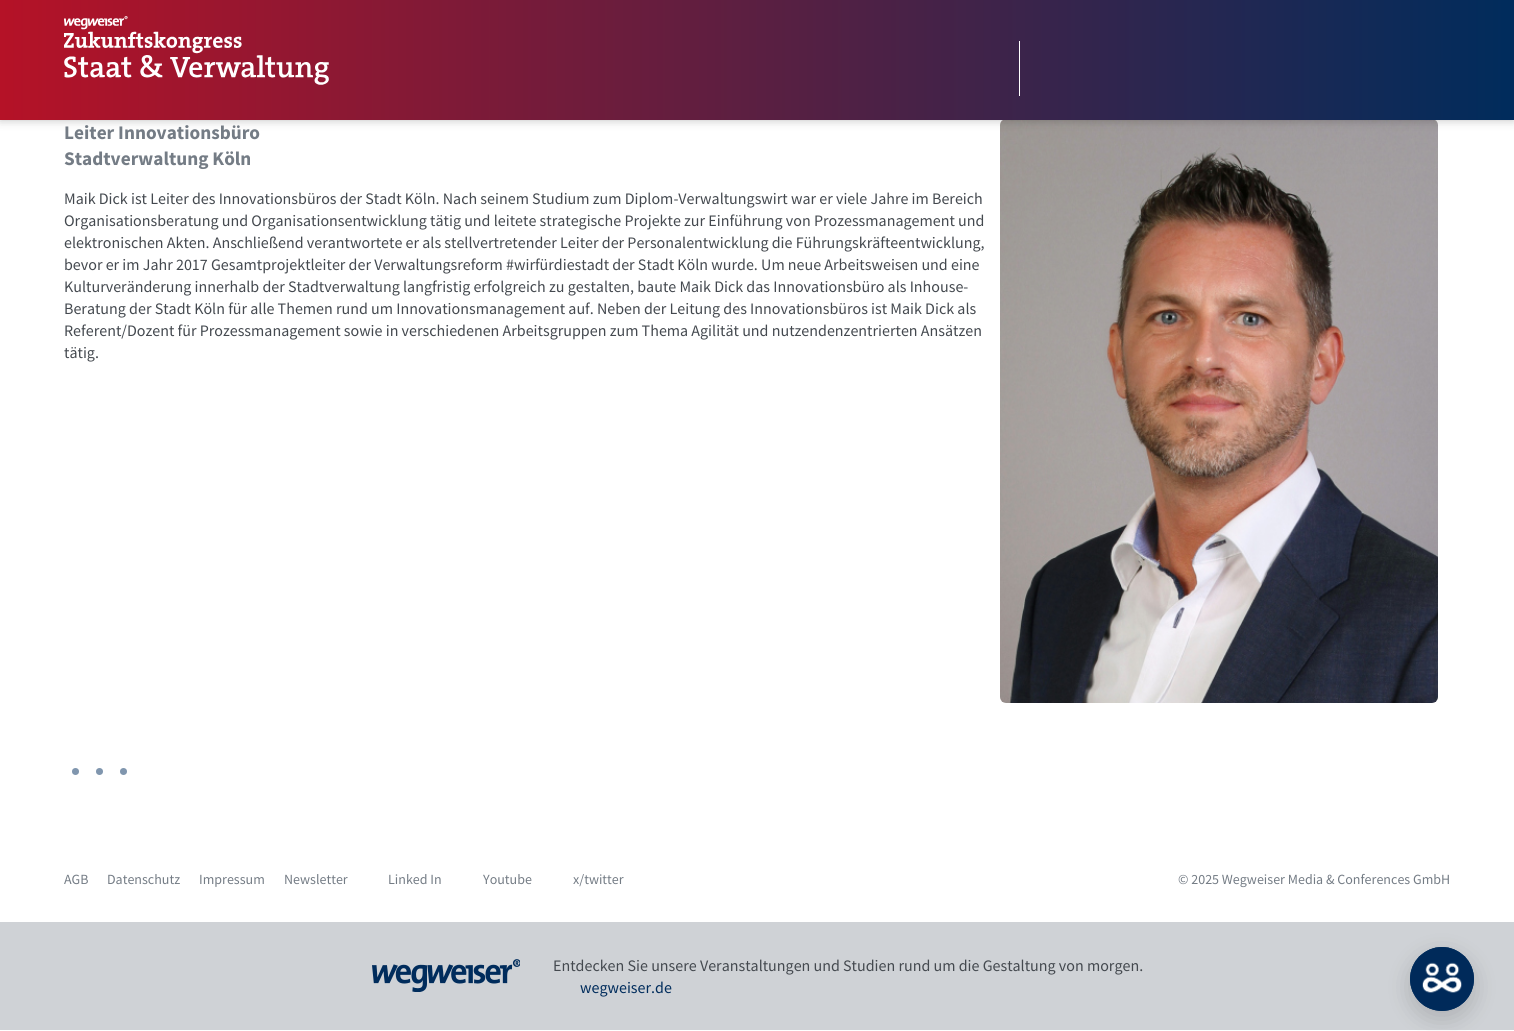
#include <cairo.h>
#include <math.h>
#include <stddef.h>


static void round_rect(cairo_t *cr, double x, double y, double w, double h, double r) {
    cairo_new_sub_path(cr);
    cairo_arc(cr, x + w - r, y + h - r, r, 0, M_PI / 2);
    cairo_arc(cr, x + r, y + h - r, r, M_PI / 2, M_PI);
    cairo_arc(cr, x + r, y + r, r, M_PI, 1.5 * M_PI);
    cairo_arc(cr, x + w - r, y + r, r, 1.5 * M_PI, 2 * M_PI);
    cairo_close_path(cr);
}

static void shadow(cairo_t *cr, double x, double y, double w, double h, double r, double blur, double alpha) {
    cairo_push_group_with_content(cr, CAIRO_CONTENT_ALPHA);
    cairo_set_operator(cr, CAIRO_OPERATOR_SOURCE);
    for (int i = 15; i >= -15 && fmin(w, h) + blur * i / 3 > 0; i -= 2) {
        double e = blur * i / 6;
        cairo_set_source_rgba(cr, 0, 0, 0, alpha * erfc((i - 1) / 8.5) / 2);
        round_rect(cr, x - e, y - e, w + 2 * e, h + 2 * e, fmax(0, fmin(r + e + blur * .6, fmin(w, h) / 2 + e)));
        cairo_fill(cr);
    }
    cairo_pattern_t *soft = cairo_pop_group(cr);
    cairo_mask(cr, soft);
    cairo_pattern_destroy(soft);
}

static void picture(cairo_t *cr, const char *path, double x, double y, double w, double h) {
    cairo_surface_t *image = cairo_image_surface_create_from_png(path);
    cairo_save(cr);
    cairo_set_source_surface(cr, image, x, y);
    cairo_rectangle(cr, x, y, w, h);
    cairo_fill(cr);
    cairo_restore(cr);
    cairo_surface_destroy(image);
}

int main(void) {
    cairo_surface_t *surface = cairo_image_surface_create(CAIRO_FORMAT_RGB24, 1514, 1031);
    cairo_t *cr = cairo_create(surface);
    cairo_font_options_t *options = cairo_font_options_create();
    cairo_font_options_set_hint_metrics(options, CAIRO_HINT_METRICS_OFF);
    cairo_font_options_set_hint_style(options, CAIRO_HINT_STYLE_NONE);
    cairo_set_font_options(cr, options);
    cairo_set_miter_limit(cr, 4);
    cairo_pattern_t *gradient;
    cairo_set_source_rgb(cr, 1, 1, 1);
    cairo_paint(cr);
    picture(cr, "img2.png", 1000, 120, 438, 583);
    cairo_set_source_rgb(cr, 0, 0, 0);
    shadow(cr, 0, 0, 1514, 120, 0, 5, 0.25);
    gradient = cairo_pattern_create_linear(0, 60, 1514, 60);
    cairo_pattern_add_color_stop_rgba(gradient, 0, 0.71, 0.071, 0.153, 1);
    cairo_pattern_add_color_stop_rgba(gradient, 1, 0, 0.173, 0.361, 1);
    cairo_set_source(cr, gradient);
    cairo_pattern_destroy(gradient);
    cairo_rectangle(cr, 0, 0, 1514, 120);
    cairo_fill(cr);
    picture(cr, "img1.png", 64, 16, 265, 69);
    cairo_set_source_rgb(cr, 1, 1, 1);
    cairo_rectangle(cr, 1019, 41, 1, 55);
    cairo_fill(cr);
    cairo_select_font_face(cr, "Source Sans Pro", CAIRO_FONT_SLANT_NORMAL, CAIRO_FONT_WEIGHT_BOLD);
    cairo_set_font_size(cr, 19.25);
    cairo_set_source_rgb(cr, 0.455, 0.486, 0.522);
    cairo_move_to(cr, 64, 139);
    cairo_show_text(cr, "Leiter Innovationsbüro");
    cairo_move_to(cr, 64, 165);
    cairo_show_text(cr, "Stadtverwaltung Köln");
    cairo_select_font_face(cr, "Source Sans Pro", CAIRO_FONT_SLANT_NORMAL, CAIRO_FONT_WEIGHT_NORMAL);
    cairo_set_font_size(cr, 16);
    cairo_set_source_rgb(cr, 0.267, 0.286, 0.31);
    cairo_move_to(cr, 64, 204);
    cairo_show_text(cr, "Maik Dick ist Leiter des Innovationsbüros der Stadt Köln. Nach seinem Studium zum Diplom-Verwaltungswirt war er viele Jahre im Bereich");
    cairo_move_to(cr, 64, 226);
    cairo_show_text(cr, "Organisationsberatung und Organisationsentwicklung tätig und leitete strategische Projekte zur Einführung von Prozessmanagement und");
    cairo_move_to(cr, 64, 248);
    cairo_show_text(cr, "elektronischen Akten. Anschließend verantwortete er als stellvertretender Leiter der Personalentwicklung die Führungskräfteentwicklung,");
    cairo_move_to(cr, 64, 270);
    cairo_show_text(cr, "bevor er im Jahr 2017 Gesamtprojektleiter der Verwaltungsreform #wirfürdiestadt der Stadt Köln wurde. Um neue Arbeitsweisen und eine");
    cairo_move_to(cr, 64, 292);
    cairo_show_text(cr, "Kulturveränderung innerhalb der Stadtverwaltung langfristig erfolgreich zu gestalten, baute Maik Dick das Innovationsbüro als Inhouse-");
    cairo_move_to(cr, 64, 314);
    cairo_show_text(cr, "Beratung der Stadt Köln für alle Themen rund um Innovationsmanagement auf. Neben der Leitung des Innovationsbüros ist Maik Dick als");
    cairo_move_to(cr, 64, 336);
    cairo_show_text(cr, "Referent/Dozent für Prozessmanagement sowie in verschiedenen Arbeitsgruppen zum Thema Agilität und nutzendenzentrierten Ansätzen");
    cairo_move_to(cr, 64, 358);
    cairo_show_text(cr, "tätig.");
    cairo_set_source_rgb(cr, 0.502, 0.588, 0.682);
    cairo_new_path(cr);
    cairo_arc(cr, 75.5, 771.5, 3.5, 0, 2 * M_PI);
    cairo_fill(cr);
    cairo_arc(cr, 99.5, 771.5, 3.5, 0, 2 * M_PI);
    cairo_fill(cr);
    cairo_arc(cr, 123.5, 771.5, 3.5, 0, 2 * M_PI);
    cairo_fill(cr);
    cairo_set_source_rgb(cr, 0.812, 0.824, 0.839);
    cairo_rectangle(cr, 0, 922, 1514, 108);
    cairo_fill(cr);
    cairo_set_source_rgb(cr, 0, 0, 0);
    shadow(cr, 1410, 955, 64, 64, 32, 12, 0.16);
    picture(cr, "img3.png", 1410, 947, 64, 64);
    cairo_arc(cr, 1442, 979, 31.5, 0, 2 * M_PI);
    cairo_set_source_rgb(cr, 0, 0.173, 0.361);
    cairo_set_line_width(cr, 1);
    cairo_stroke(cr);
    cairo_set_font_size(cr, 14);
    cairo_set_source_rgb(cr, 0.455, 0.486, 0.522);
    cairo_move_to(cr, 64, 884);
    cairo_show_text(cr, "AGB");
    cairo_move_to(cr, 107, 884);
    cairo_show_text(cr, "Datenschutz");
    cairo_move_to(cr, 199, 884);
    cairo_show_text(cr, "Impressum");
    cairo_move_to(cr, 284, 884);
    cairo_show_text(cr, "Newsletter");
    cairo_move_to(cr, 388, 884);
    cairo_show_text(cr, "Linked In");
    cairo_move_to(cr, 483, 884);
    cairo_show_text(cr, "Youtube");
    cairo_move_to(cr, 573, 884);
    cairo_show_text(cr, "x/twitter");
    cairo_move_to(cr, 1178, 884);
    cairo_show_text(cr, "© 2025 Wegweiser Media & Conferences GmbH");
    picture(cr, "img4.png", 372, 959, 148, 33);
    cairo_set_font_size(cr, 16);
    cairo_set_source_rgb(cr, 0.267, 0.286, 0.31);
    cairo_move_to(cr, 553, 971);
    cairo_show_text(cr, "Entdecken Sie unsere Veranstaltungen und Studien rund um die Gestaltung von morgen.");
    cairo_set_source_rgb(cr, 0, 0.173, 0.361);
    cairo_move_to(cr, 580, 993);
    cairo_show_text(cr, "wegweiser.de");
    cairo_surface_write_to_png(surface, "page.png");
    cairo_font_options_destroy(options);
    cairo_destroy(cr);
    cairo_surface_destroy(surface);
    return 0;
}
